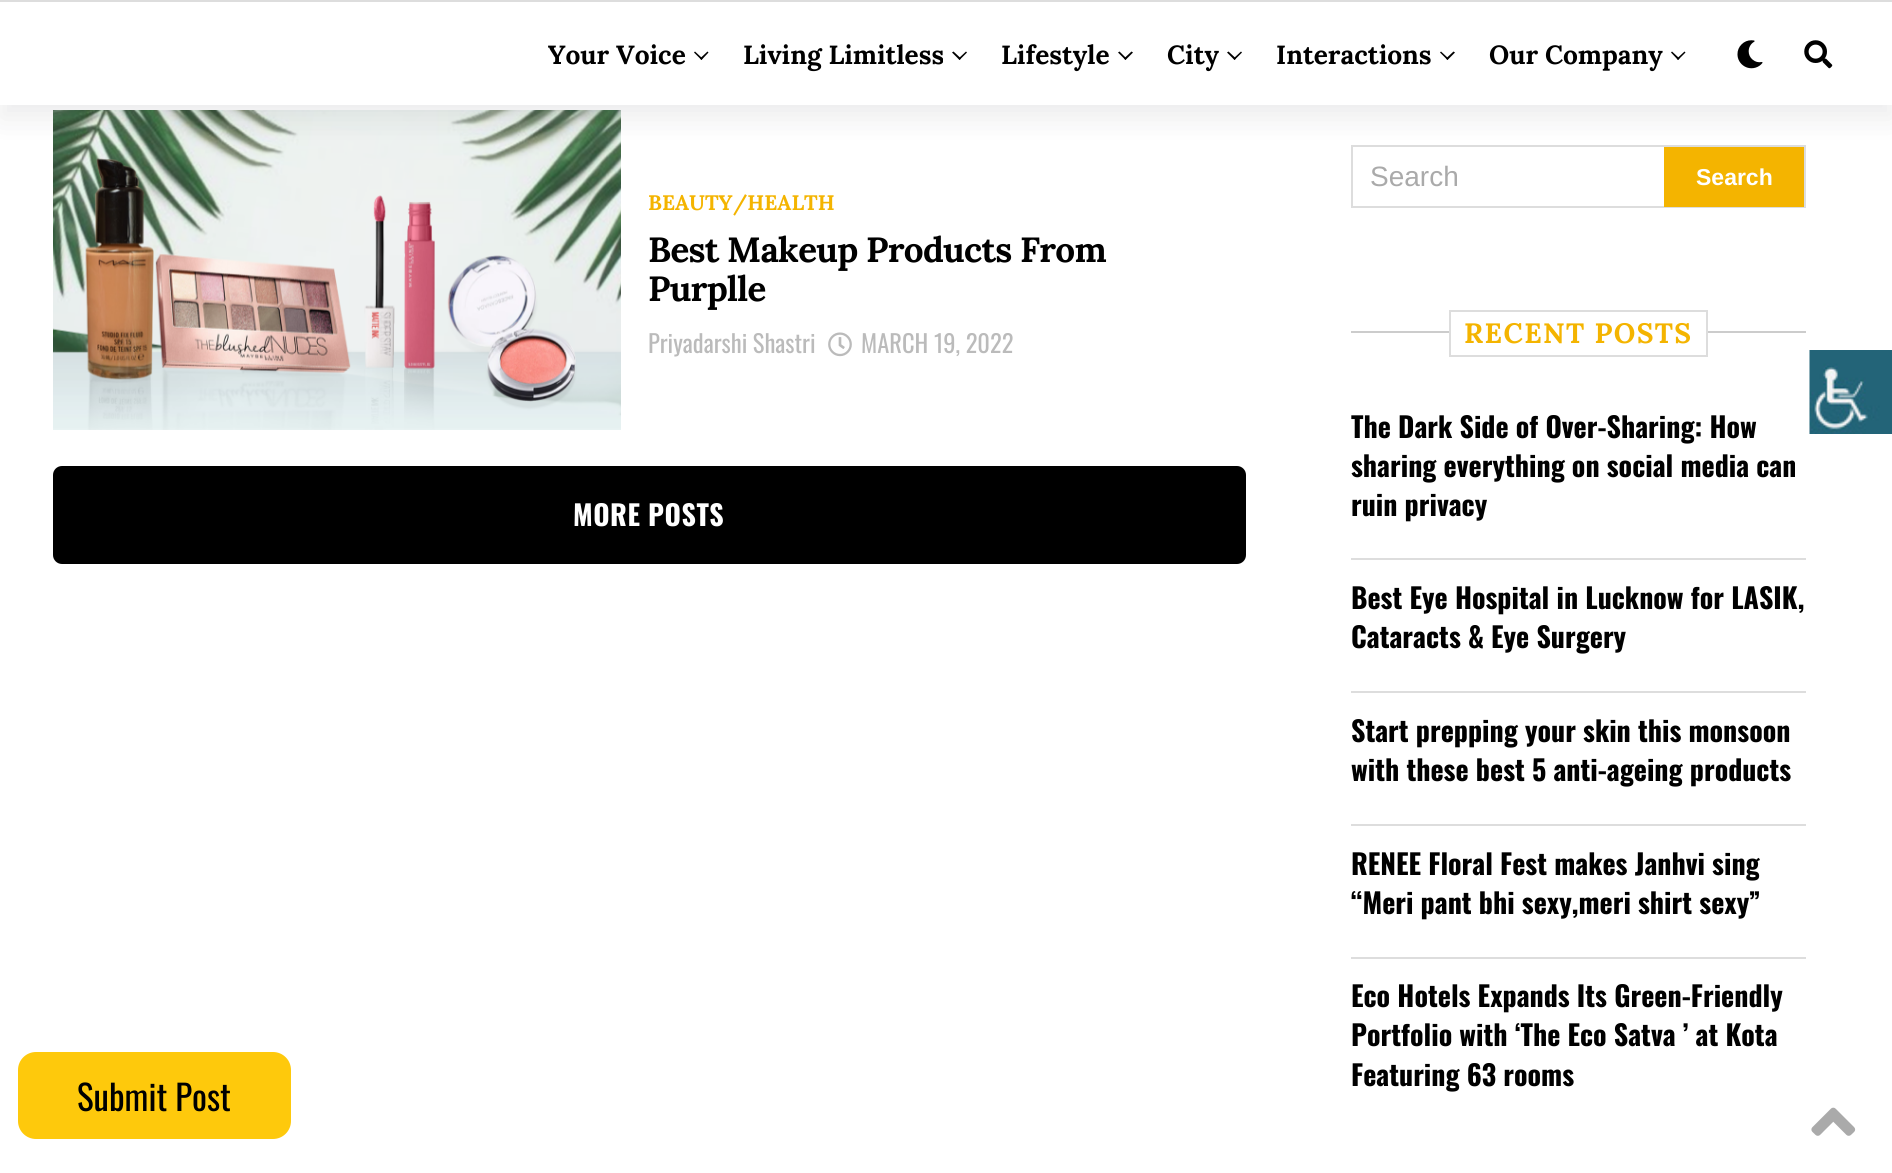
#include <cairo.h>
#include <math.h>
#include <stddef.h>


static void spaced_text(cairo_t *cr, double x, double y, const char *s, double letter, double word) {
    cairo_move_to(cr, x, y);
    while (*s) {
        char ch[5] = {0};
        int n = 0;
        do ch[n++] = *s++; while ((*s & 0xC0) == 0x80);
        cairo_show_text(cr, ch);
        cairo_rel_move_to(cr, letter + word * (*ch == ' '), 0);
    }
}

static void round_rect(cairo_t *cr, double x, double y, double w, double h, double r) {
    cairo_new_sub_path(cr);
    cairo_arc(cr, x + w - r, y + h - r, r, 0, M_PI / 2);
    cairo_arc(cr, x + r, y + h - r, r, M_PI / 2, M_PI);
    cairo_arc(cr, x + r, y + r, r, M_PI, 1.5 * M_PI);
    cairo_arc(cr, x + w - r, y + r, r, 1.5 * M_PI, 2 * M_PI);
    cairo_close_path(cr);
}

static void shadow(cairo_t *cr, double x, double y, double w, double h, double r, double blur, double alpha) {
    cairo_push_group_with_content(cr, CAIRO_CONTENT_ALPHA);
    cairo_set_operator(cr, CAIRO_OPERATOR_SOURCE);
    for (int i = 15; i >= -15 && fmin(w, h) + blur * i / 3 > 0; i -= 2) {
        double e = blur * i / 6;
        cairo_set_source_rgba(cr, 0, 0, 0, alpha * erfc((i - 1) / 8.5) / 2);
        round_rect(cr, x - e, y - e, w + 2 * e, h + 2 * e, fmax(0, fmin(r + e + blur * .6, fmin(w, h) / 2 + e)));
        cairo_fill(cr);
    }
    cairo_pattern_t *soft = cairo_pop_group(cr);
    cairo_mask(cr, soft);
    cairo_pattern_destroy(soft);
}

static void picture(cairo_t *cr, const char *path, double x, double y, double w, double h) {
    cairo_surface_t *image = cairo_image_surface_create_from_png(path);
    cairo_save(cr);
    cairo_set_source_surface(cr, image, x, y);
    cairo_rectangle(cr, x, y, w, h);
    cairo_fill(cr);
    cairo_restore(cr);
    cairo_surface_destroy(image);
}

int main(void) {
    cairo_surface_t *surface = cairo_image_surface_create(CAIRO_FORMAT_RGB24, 1892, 1173);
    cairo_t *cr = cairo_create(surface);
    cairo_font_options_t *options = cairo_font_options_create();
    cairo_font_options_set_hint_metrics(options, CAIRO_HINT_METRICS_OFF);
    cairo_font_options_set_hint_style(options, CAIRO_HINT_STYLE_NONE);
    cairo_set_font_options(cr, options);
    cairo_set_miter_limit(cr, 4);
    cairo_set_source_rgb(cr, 1, 1, 1);
    cairo_paint(cr);
    picture(cr, "img3.png", 53, 110, 568, 320);
    cairo_rectangle(cr, 1352, 146, 453, 61);
    cairo_set_source_rgb(cr, 0.867, 0.867, 0.867);
    cairo_stroke(cr);
    cairo_set_source_rgb(cr, 0.957, 0.706, 0);
    cairo_rectangle(cr, 1664, 147, 140, 60);
    cairo_fill(cr);
    cairo_set_source_rgb(cr, 0.082, 0.082, 0.118);
    shadow(cr, 0, 14, 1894, 105, 0, 14, 0.08);
    cairo_set_source_rgb(cr, 1, 1, 1);
    cairo_rectangle(cr, 0, 2, 1892, 103);
    cairo_fill(cr);
    cairo_set_source_rgb(cr, 0.867, 0.867, 0.867);
    cairo_rectangle(cr, 0, 0, 1892, 2);
    cairo_fill(cr);
    cairo_select_font_face(cr, "Lora", CAIRO_FONT_SLANT_NORMAL, CAIRO_FONT_WEIGHT_BOLD);
    cairo_set_font_size(cr, 26.25);
    cairo_set_source_rgb(cr, 0, 0, 0);
    cairo_move_to(cr, 548, 64);
    cairo_show_text(cr, "Your Voice");
    cairo_new_path(cr);
    cairo_move_to(cr, 707.5, 51.5);
    cairo_line_to(cr, 708.5, 52.5);
    cairo_line_to(cr, 701.5, 60);
    cairo_line_to(cr, 700, 58.5);
    cairo_close_path(cr);
    cairo_fill(cr);
    cairo_new_path(cr);
    cairo_move_to(cr, 695, 51.5);
    cairo_line_to(cr, 702.5, 58.5);
    cairo_line_to(cr, 701.5, 60);
    cairo_line_to(cr, 694, 52.5);
    cairo_close_path(cr);
    cairo_fill(cr);
    cairo_move_to(cr, 743, 64);
    cairo_show_text(cr, "Living Limitless");
    cairo_new_path(cr);
    cairo_move_to(cr, 966, 51.5);
    cairo_line_to(cr, 967, 52.5);
    cairo_line_to(cr, 959.5, 60);
    cairo_line_to(cr, 958.5, 58.5);
    cairo_close_path(cr);
    cairo_fill(cr);
    cairo_new_path(cr);
    cairo_move_to(cr, 953.5, 51.5);
    cairo_line_to(cr, 961, 58.5);
    cairo_line_to(cr, 959.5, 60);
    cairo_line_to(cr, 952, 52.5);
    cairo_close_path(cr);
    cairo_fill(cr);
    cairo_move_to(cr, 1001, 64);
    cairo_show_text(cr, "Lifestyle");
    cairo_new_path(cr);
    cairo_move_to(cr, 1131.5, 51.5);
    cairo_line_to(cr, 1133, 52.5);
    cairo_line_to(cr, 1125.5, 60);
    cairo_line_to(cr, 1124, 58.5);
    cairo_close_path(cr);
    cairo_fill(cr);
    cairo_new_path(cr);
    cairo_move_to(cr, 1119.5, 51.5);
    cairo_line_to(cr, 1126.5, 58.5);
    cairo_line_to(cr, 1125.5, 60);
    cairo_line_to(cr, 1118, 52.5);
    cairo_close_path(cr);
    cairo_fill(cr);
    cairo_move_to(cr, 1167, 64);
    cairo_show_text(cr, "City");
    cairo_new_path(cr);
    cairo_move_to(cr, 1241, 51.5);
    cairo_line_to(cr, 1242, 52.5);
    cairo_line_to(cr, 1234.5, 60);
    cairo_line_to(cr, 1233.5, 58.5);
    cairo_close_path(cr);
    cairo_fill(cr);
    cairo_new_path(cr);
    cairo_move_to(cr, 1228.5, 51.5);
    cairo_line_to(cr, 1236, 58.5);
    cairo_line_to(cr, 1234.5, 60);
    cairo_line_to(cr, 1227, 52.5);
    cairo_close_path(cr);
    cairo_fill(cr);
    cairo_move_to(cr, 1276, 64);
    cairo_show_text(cr, "Interactions");
    cairo_new_path(cr);
    cairo_move_to(cr, 1453.5, 51.5);
    cairo_line_to(cr, 1455, 52.5);
    cairo_line_to(cr, 1447.5, 60);
    cairo_line_to(cr, 1446, 58.5);
    cairo_close_path(cr);
    cairo_fill(cr);
    cairo_new_path(cr);
    cairo_move_to(cr, 1441, 51.5);
    cairo_line_to(cr, 1448.5, 58.5);
    cairo_line_to(cr, 1447.5, 60);
    cairo_line_to(cr, 1440, 52.5);
    cairo_close_path(cr);
    cairo_fill(cr);
    cairo_move_to(cr, 1489, 64);
    cairo_show_text(cr, "Our Company");
    cairo_new_path(cr);
    cairo_move_to(cr, 1684.5, 51.5);
    cairo_line_to(cr, 1685.5, 52.5);
    cairo_line_to(cr, 1678, 60);
    cairo_line_to(cr, 1677, 58.5);
    cairo_close_path(cr);
    cairo_fill(cr);
    cairo_new_path(cr);
    cairo_move_to(cr, 1672, 51.5);
    cairo_line_to(cr, 1679.5, 58.5);
    cairo_line_to(cr, 1678, 60);
    cairo_line_to(cr, 1671, 52.5);
    cairo_close_path(cr);
    cairo_fill(cr);
    picture(cr, "img1.png", 1737, 40, 26, 29);
    picture(cr, "img2.png", 1804, 40, 29, 29);
    cairo_set_font_size(cr, 21);
    cairo_set_source_rgb(cr, 0.957, 0.706, 0);
    cairo_move_to(cr, 648, 210);
    cairo_show_text(cr, "BEAUTY/HEALTH");
    cairo_set_font_size(cr, 35);
    cairo_set_source_rgb(cr, 0, 0, 0);
    spaced_text(cr, 648, 262, "Best Makeup Products From", -0.7, 0);
    spaced_text(cr, 648, 301, "Purplle", -0.7, 0);
    cairo_select_font_face(cr, "Oswald", CAIRO_FONT_SLANT_NORMAL, CAIRO_FONT_WEIGHT_NORMAL);
    cairo_set_font_size(cr, 24.5);
    cairo_set_source_rgb(cr, 0.733, 0.733, 0.733);
    cairo_move_to(cr, 648, 353);
    cairo_show_text(cr, "Priyadarshi Shastri");
    picture(cr, "img4.png", 828, 332, 24, 25);
    cairo_move_to(cr, 861, 353);
    cairo_show_text(cr, "MARCH 19, 2022");
    cairo_set_source_rgb(cr, 0, 0, 0);
    round_rect(cr, 53, 466, 1193, 98, 9);
    cairo_fill(cr);
    cairo_select_font_face(cr, "Oswald", CAIRO_FONT_SLANT_NORMAL, CAIRO_FONT_WEIGHT_BOLD);
    cairo_set_font_size(cr, 28);
    cairo_set_source_rgb(cr, 1, 1, 1);
    spaced_text(cr, 573, 526, "MORE POSTS", 0.5, 0);
    cairo_select_font_face(cr, "Liberation Sans", CAIRO_FONT_SLANT_NORMAL, CAIRO_FONT_WEIGHT_NORMAL);
    cairo_set_source_rgb(cr, 0.667, 0.667, 0.667);
    cairo_move_to(cr, 1370, 186);
    cairo_show_text(cr, "Search");
    cairo_select_font_face(cr, "Liberation Sans", CAIRO_FONT_SLANT_NORMAL, CAIRO_FONT_WEIGHT_BOLD);
    cairo_set_font_size(cr, 23);
    cairo_set_source_rgb(cr, 1, 1, 1);
    cairo_move_to(cr, 1696, 185);
    cairo_show_text(cr, "Search");
    cairo_set_source_rgb(cr, 0.8, 0.8, 0.8);
    cairo_rectangle(cr, 1351, 331, 455, 2);
    cairo_fill(cr);
    cairo_set_source_rgb(cr, 1, 1, 1);
    cairo_rectangle(cr, 1451, 331, 255, 2);
    cairo_fill(cr);
    cairo_rectangle(cr, 1450, 311, 257, 45);
    cairo_set_source_rgb(cr, 0.867, 0.867, 0.867);
    cairo_stroke(cr);
    cairo_select_font_face(cr, "Lora", CAIRO_FONT_SLANT_NORMAL, CAIRO_FONT_WEIGHT_BOLD);
    cairo_set_font_size(cr, 28);
    cairo_set_source_rgb(cr, 0.957, 0.706, 0);
    spaced_text(cr, 1464, 343, "RECENT POSTS", 1.4, 0);
    cairo_select_font_face(cr, "Oswald", CAIRO_FONT_SLANT_NORMAL, CAIRO_FONT_WEIGHT_BOLD);
    cairo_set_source_rgb(cr, 0, 0, 0);
    cairo_move_to(cr, 1351, 438);
    cairo_show_text(cr, "The Dark Side of Over-Sharing: How");
    cairo_move_to(cr, 1351, 477);
    cairo_show_text(cr, "sharing everything on social media can");
    cairo_move_to(cr, 1351, 516);
    cairo_show_text(cr, "ruin privacy");
    cairo_set_source_rgb(cr, 0.867, 0.867, 0.867);
    cairo_rectangle(cr, 1351, 558, 455, 2);
    cairo_fill(cr);
    cairo_set_source_rgb(cr, 0, 0, 0);
    cairo_move_to(cr, 1351, 609);
    cairo_show_text(cr, "Best Eye Hospital in Lucknow for LASIK,");
    cairo_move_to(cr, 1351, 648);
    cairo_show_text(cr, "Cataracts & Eye Surgery");
    cairo_set_source_rgb(cr, 0.867, 0.867, 0.867);
    cairo_rectangle(cr, 1351, 691, 455, 2);
    cairo_fill(cr);
    cairo_set_source_rgb(cr, 0, 0, 0);
    cairo_move_to(cr, 1351, 742);
    cairo_show_text(cr, "Start prepping your skin this monsoon");
    cairo_move_to(cr, 1351, 781);
    cairo_show_text(cr, "with these best 5 anti-ageing products");
    cairo_set_source_rgb(cr, 0.867, 0.867, 0.867);
    cairo_rectangle(cr, 1351, 824, 455, 2);
    cairo_fill(cr);
    cairo_set_source_rgb(cr, 0, 0, 0);
    cairo_move_to(cr, 1351, 875);
    cairo_show_text(cr, "RENEE Floral Fest makes Janhvi sing");
    cairo_move_to(cr, 1351, 914);
    cairo_show_text(cr, "“Meri pant bhi sexy,meri shirt sexy”");
    cairo_set_source_rgb(cr, 0.867, 0.867, 0.867);
    cairo_rectangle(cr, 1351, 957, 455, 2);
    cairo_fill(cr);
    cairo_set_source_rgb(cr, 0, 0, 0);
    cairo_move_to(cr, 1351, 1007);
    cairo_show_text(cr, "Eco Hotels Expands Its Green-Friendly");
    cairo_move_to(cr, 1351, 1046);
    cairo_show_text(cr, "Portfolio with ‘The Eco Satva ’ at Kota");
    cairo_move_to(cr, 1351, 1086);
    cairo_show_text(cr, "Featuring 63 rooms");
    picture(cr, "img5.png", 1811, 1107, 45, 29);
    picture(cr, "img6.png", 1809, 350, 83, 84);
    cairo_set_source_rgb(cr, 0.996, 0.788, 0.047);
    round_rect(cr, 18, 1052, 273, 87, 18);
    cairo_fill(cr);
    cairo_select_font_face(cr, "Oswald", CAIRO_FONT_SLANT_NORMAL, CAIRO_FONT_WEIGHT_NORMAL);
    cairo_set_font_size(cr, 35);
    cairo_set_source_rgb(cr, 0, 0, 0);
    cairo_move_to(cr, 77, 1111);
    cairo_show_text(cr, "Submit Post");
    cairo_surface_write_to_png(surface, "page.png");
    cairo_font_options_destroy(options);
    cairo_destroy(cr);
    cairo_surface_destroy(surface);
    return 0;
}
